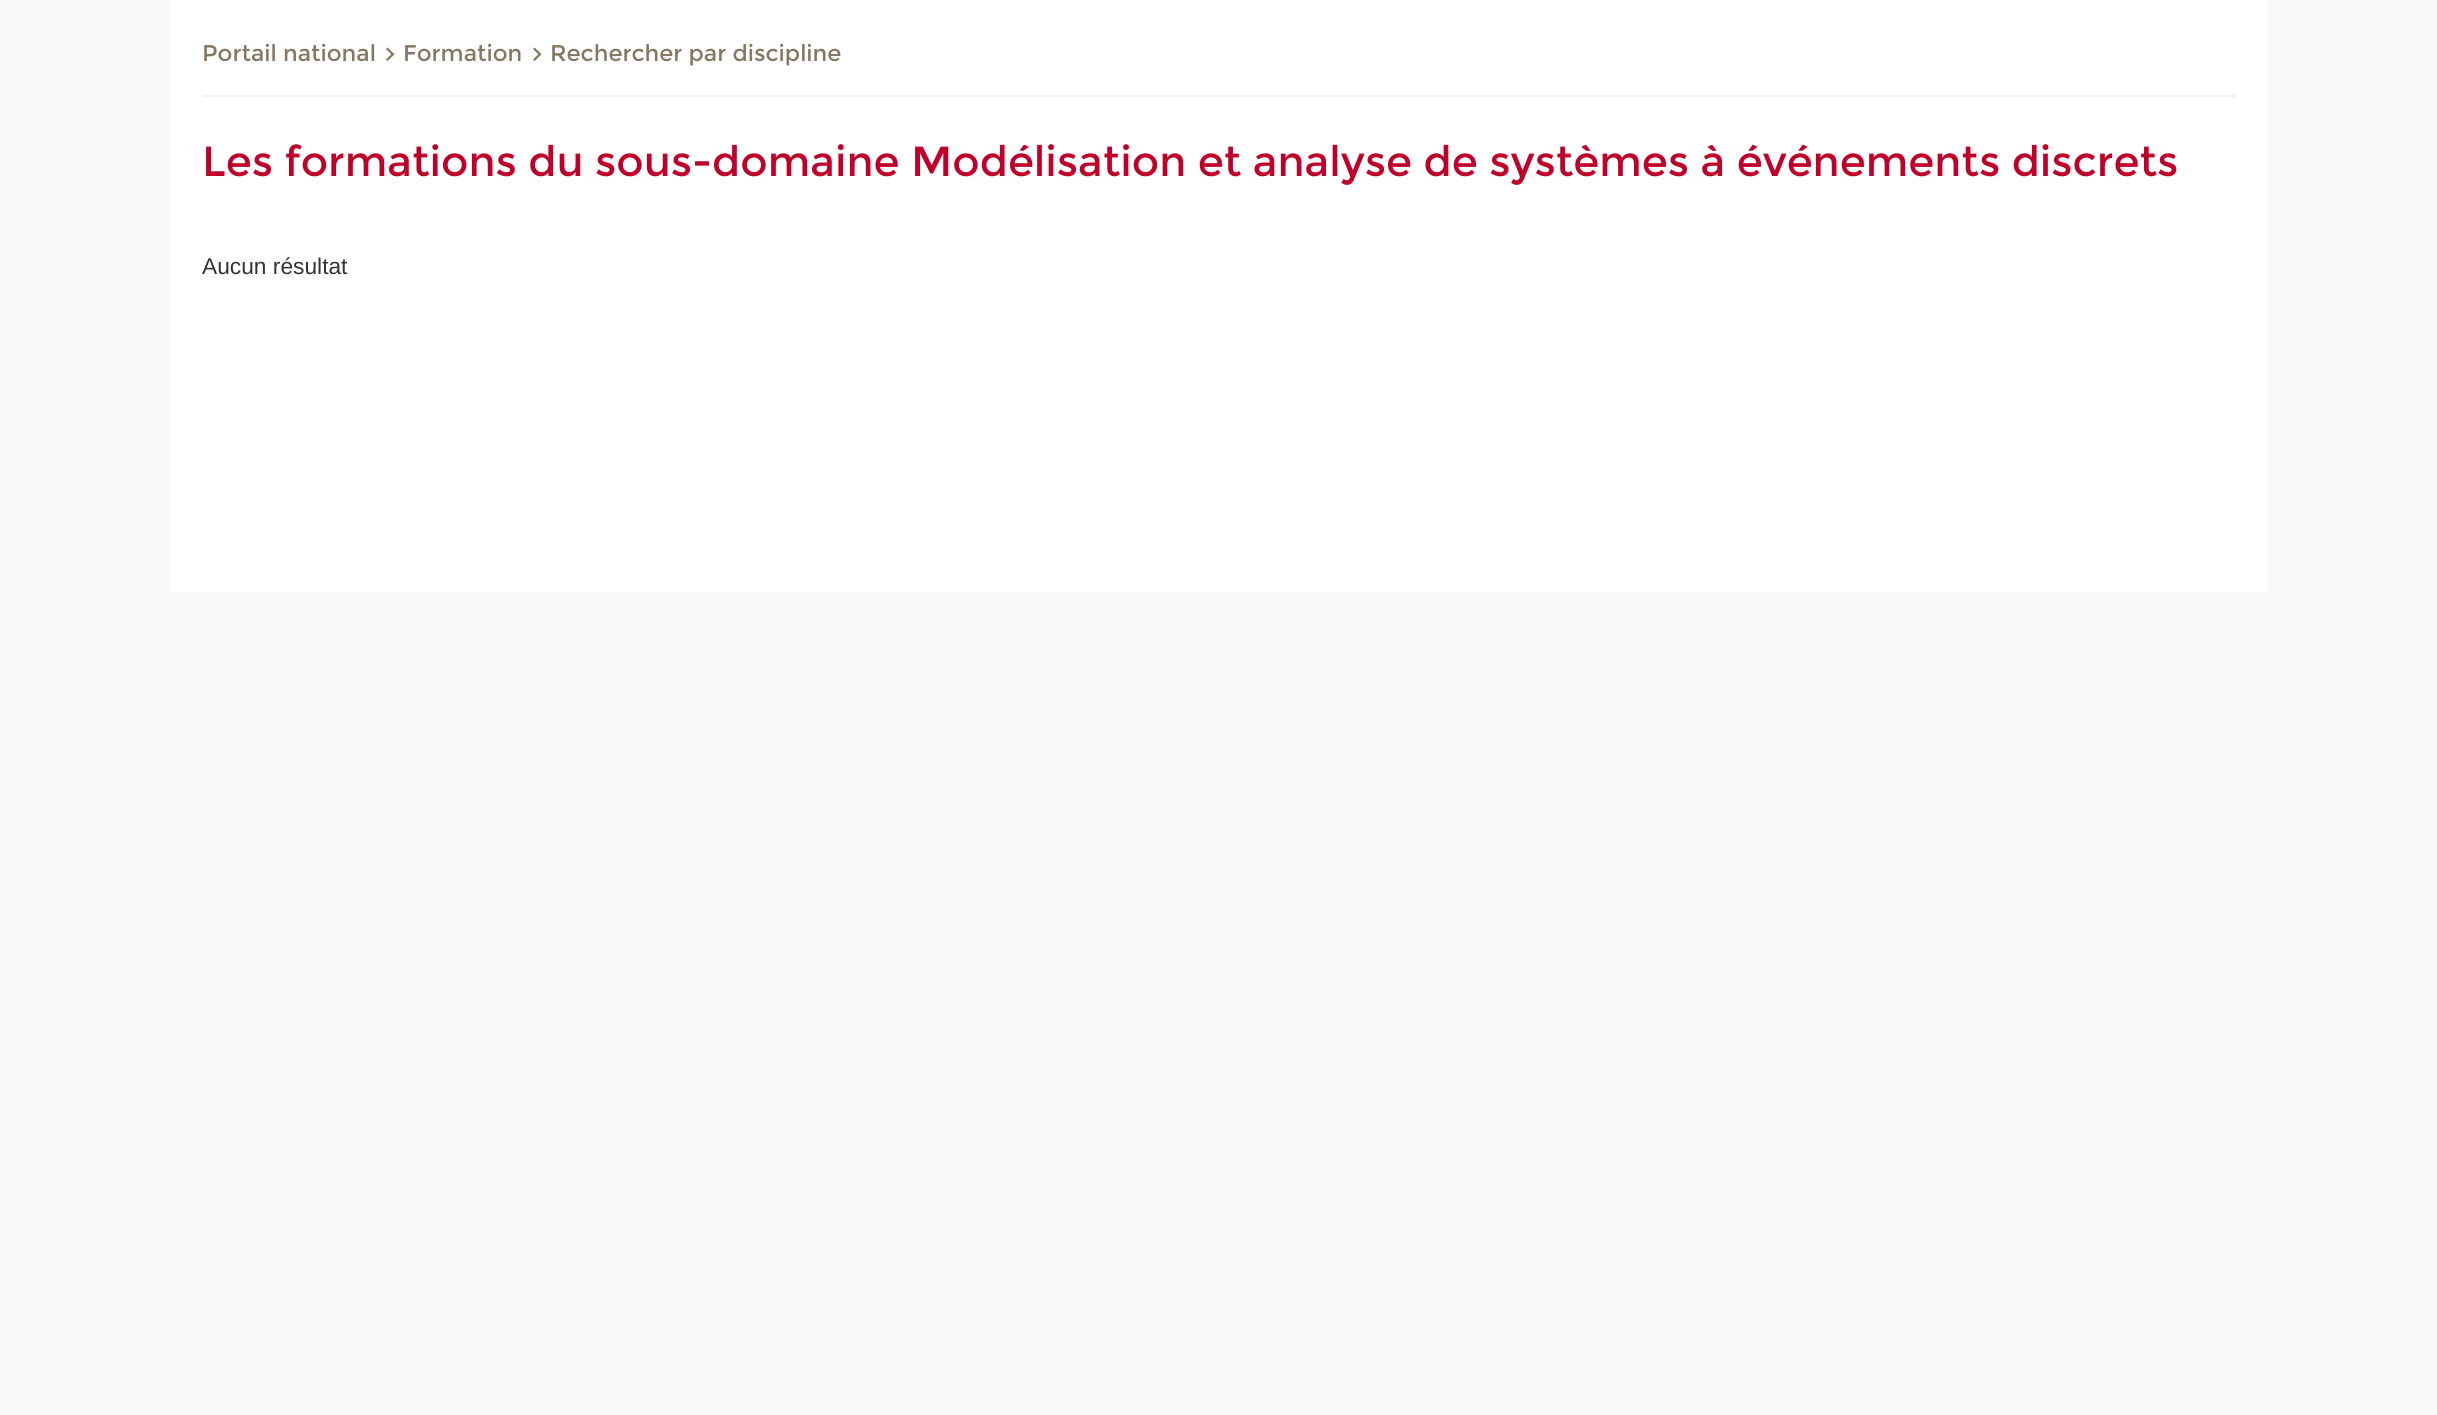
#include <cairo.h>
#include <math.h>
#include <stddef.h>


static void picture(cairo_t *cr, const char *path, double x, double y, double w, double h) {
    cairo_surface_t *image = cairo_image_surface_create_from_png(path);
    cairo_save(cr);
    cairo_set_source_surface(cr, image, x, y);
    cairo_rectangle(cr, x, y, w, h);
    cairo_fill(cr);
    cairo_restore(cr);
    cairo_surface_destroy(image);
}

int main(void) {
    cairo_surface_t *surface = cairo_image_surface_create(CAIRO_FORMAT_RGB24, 2437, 1415);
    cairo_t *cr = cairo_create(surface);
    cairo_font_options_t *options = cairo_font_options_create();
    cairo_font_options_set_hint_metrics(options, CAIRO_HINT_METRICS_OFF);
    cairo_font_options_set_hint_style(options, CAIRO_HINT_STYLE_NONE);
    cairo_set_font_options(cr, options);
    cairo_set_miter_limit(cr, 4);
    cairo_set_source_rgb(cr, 0.98, 0.98, 0.98);
    cairo_paint(cr);
    cairo_set_source_rgb(cr, 1, 1, 1);
    cairo_rectangle(cr, 170, 0, 2098, 592);
    cairo_fill(cr);
    cairo_set_source_rgb(cr, 0.933, 0.933, 0.933);
    cairo_rectangle(cr, 203, 95, 2032, 2);
    cairo_fill(cr);
    cairo_select_font_face(cr, "Montserrat", CAIRO_FONT_SLANT_NORMAL, CAIRO_FONT_WEIGHT_NORMAL);
    cairo_set_font_size(cr, 22.75);
    cairo_set_source_rgb(cr, 0.522, 0.467, 0.38);
    cairo_move_to(cr, 202, 61);
    cairo_show_text(cr, "Portail national");
    picture(cr, "img1.png", 386, 47, 9, 14);
    cairo_move_to(cr, 403, 61);
    cairo_show_text(cr, "Formation");
    picture(cr, "img1.png", 533, 47, 9, 14);
    cairo_move_to(cr, 550, 61);
    cairo_show_text(cr, "Rechercher par discipline");
    cairo_set_font_size(cr, 42);
    cairo_set_source_rgb(cr, 0.757, 0, 0.165);
    cairo_move_to(cr, 202, 176);
    cairo_show_text(cr, "Les formations du sous-domaine Modélisation et analyse de systèmes à événements discrets");
    cairo_select_font_face(cr, "Liberation Sans", CAIRO_FONT_SLANT_NORMAL, CAIRO_FONT_WEIGHT_NORMAL);
    cairo_set_font_size(cr, 22.75);
    cairo_set_source_rgb(cr, 0.2, 0.2, 0.2);
    cairo_move_to(cr, 202, 274);
    cairo_show_text(cr, "Aucun résultat");
    cairo_surface_write_to_png(surface, "page.png");
    cairo_font_options_destroy(options);
    cairo_destroy(cr);
    cairo_surface_destroy(surface);
    return 0;
}
